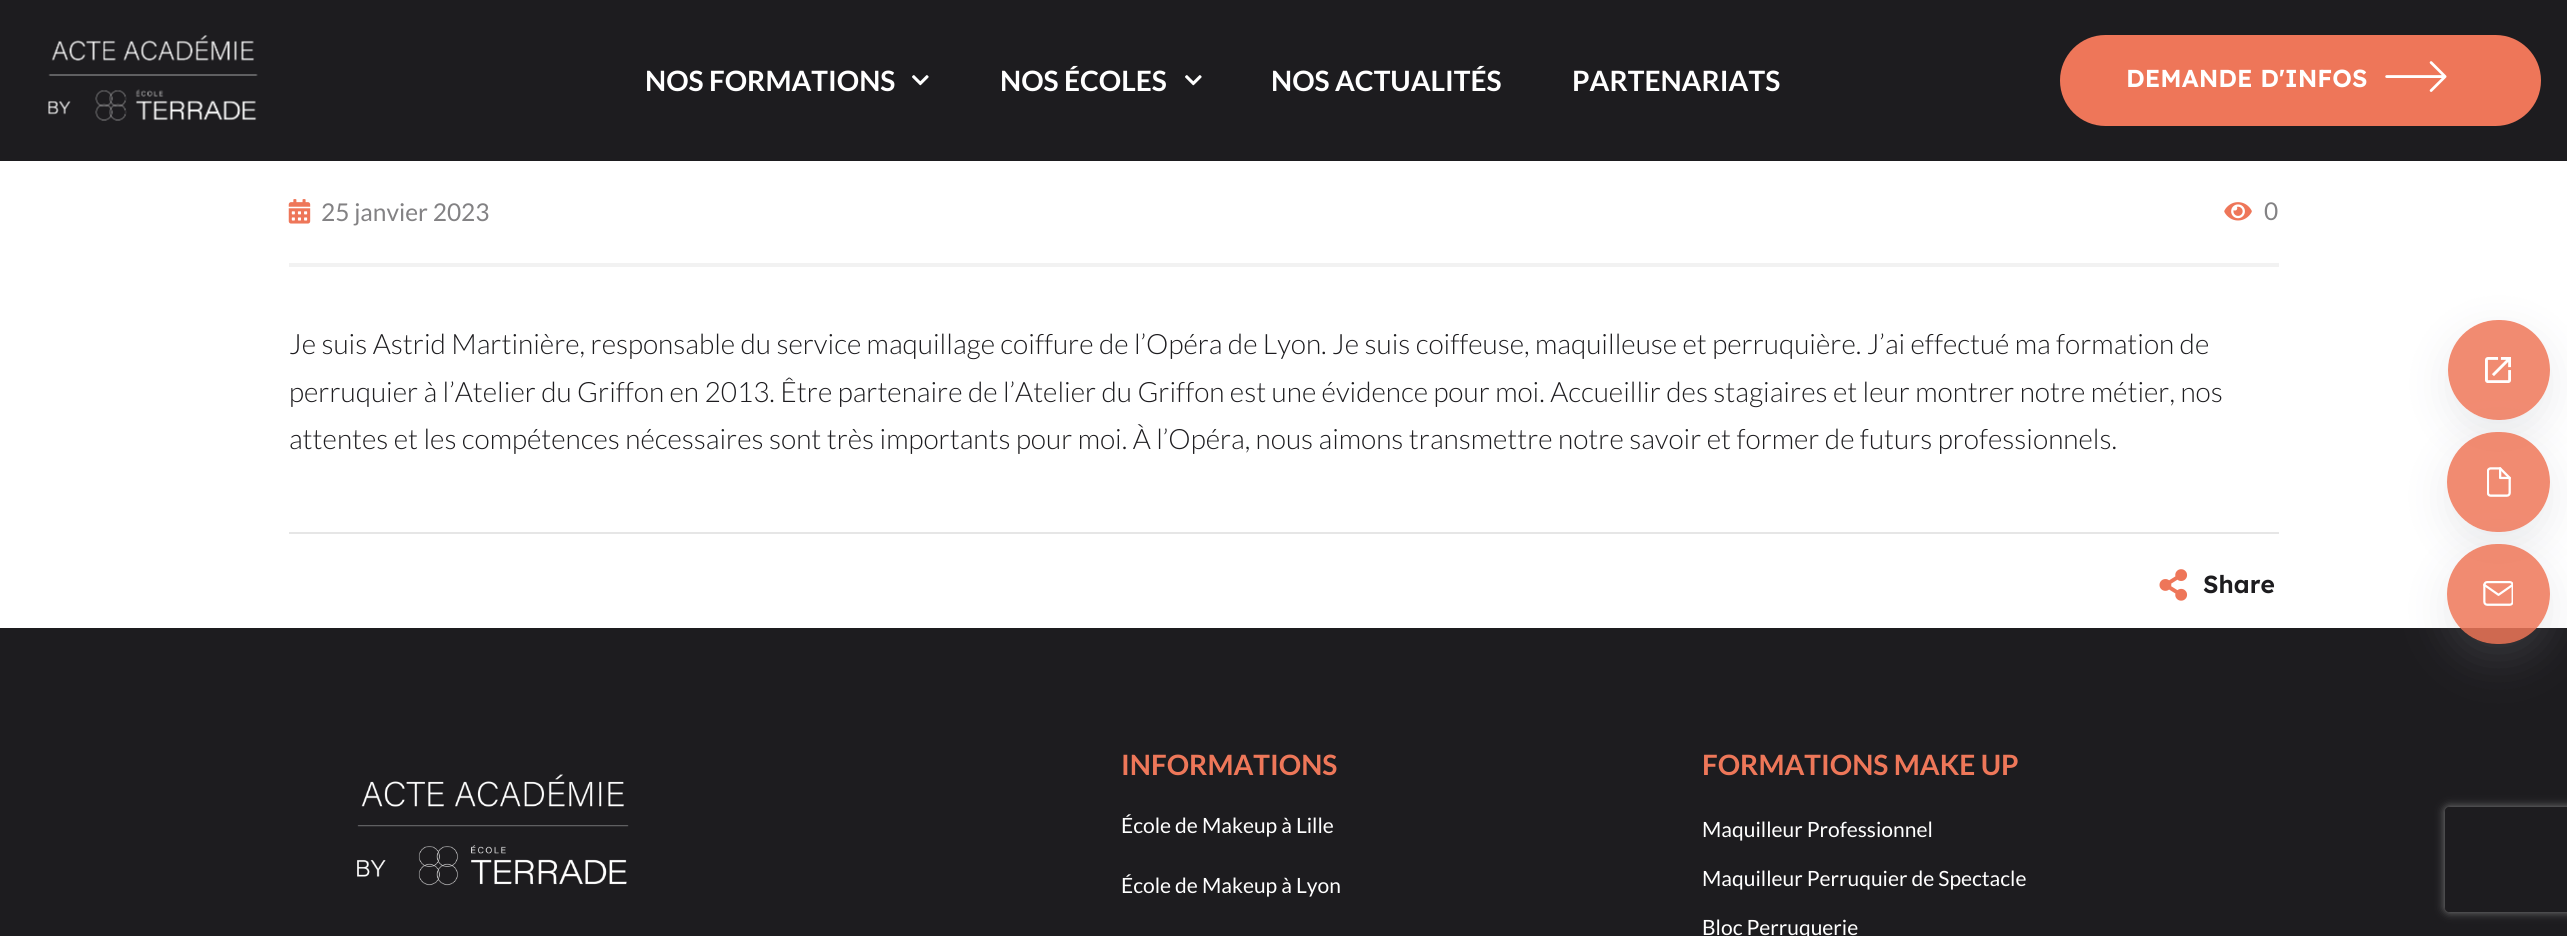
#include <cairo.h>
#include <math.h>
#include <stddef.h>


static void round_rect(cairo_t *cr, double x, double y, double w, double h, double r) {
    cairo_new_sub_path(cr);
    cairo_arc(cr, x + w - r, y + h - r, r, 0, M_PI / 2);
    cairo_arc(cr, x + r, y + h - r, r, M_PI / 2, M_PI);
    cairo_arc(cr, x + r, y + r, r, M_PI, 1.5 * M_PI);
    cairo_arc(cr, x + w - r, y + r, r, 1.5 * M_PI, 2 * M_PI);
    cairo_close_path(cr);
}

static void shadow(cairo_t *cr, double x, double y, double w, double h, double r, double blur, double alpha) {
    cairo_push_group_with_content(cr, CAIRO_CONTENT_ALPHA);
    cairo_set_operator(cr, CAIRO_OPERATOR_SOURCE);
    for (int i = 15; i >= -15 && fmin(w, h) + blur * i / 3 > 0; i -= 2) {
        double e = blur * i / 6;
        cairo_set_source_rgba(cr, 0, 0, 0, alpha * erfc((i - 1) / 8.5) / 2);
        round_rect(cr, x - e, y - e, w + 2 * e, h + 2 * e, fmax(0, fmin(r + e + blur * .6, fmin(w, h) / 2 + e)));
        cairo_fill(cr);
    }
    cairo_pattern_t *soft = cairo_pop_group(cr);
    cairo_mask(cr, soft);
    cairo_pattern_destroy(soft);
}

static void picture(cairo_t *cr, const char *path, double x, double y, double w, double h) {
    cairo_surface_t *image = cairo_image_surface_create_from_png(path);
    cairo_save(cr);
    cairo_set_source_surface(cr, image, x, y);
    cairo_rectangle(cr, x, y, w, h);
    cairo_fill(cr);
    cairo_restore(cr);
    cairo_surface_destroy(image);
}

int main(void) {
    cairo_surface_t *surface = cairo_image_surface_create(CAIRO_FORMAT_RGB24, 2567, 936);
    cairo_t *cr = cairo_create(surface);
    cairo_font_options_t *options = cairo_font_options_create();
    cairo_font_options_set_hint_metrics(options, CAIRO_HINT_METRICS_OFF);
    cairo_font_options_set_hint_style(options, CAIRO_HINT_STYLE_NONE);
    cairo_set_font_options(cr, options);
    cairo_set_miter_limit(cr, 4);
    cairo_set_source_rgb(cr, 1, 1, 1);
    cairo_paint(cr);
    cairo_set_source_rgb(cr, 0.114, 0.11, 0.122);
    cairo_rectangle(cr, 0, 0, 2567, 161);
    cairo_fill(cr);
    picture(cr, "img1.png", 48, 35, 210, 86);
    cairo_select_font_face(cr, "Lato", CAIRO_FONT_SLANT_NORMAL, CAIRO_FONT_WEIGHT_BOLD);
    cairo_set_font_size(cr, 28);
    cairo_set_source_rgb(cr, 1, 1, 1);
    cairo_move_to(cr, 645, 91);
    cairo_show_text(cr, "NOS FORMATIONS");
    picture(cr, "img2.png", 912, 75, 17, 11);
    cairo_move_to(cr, 1000, 91);
    cairo_show_text(cr, "NOS ÉCOLES");
    picture(cr, "img2.png", 1185, 75, 17, 11);
    cairo_move_to(cr, 1271, 91);
    cairo_show_text(cr, "NOS ACTUALITÉS");
    cairo_move_to(cr, 1572, 91);
    cairo_show_text(cr, "PARTENARIATS");
    cairo_set_source_rgb(cr, 0.933, 0.463, 0.349);
    round_rect(cr, 2060, 35, 481, 91, 45.5);
    cairo_fill(cr);
    cairo_select_font_face(cr, "Lexend SemiBold", CAIRO_FONT_SLANT_NORMAL, CAIRO_FONT_WEIGHT_NORMAL);
    cairo_set_font_size(cr, 24.5);
    cairo_set_source_rgb(cr, 1, 1, 1);
    cairo_move_to(cr, 2126, 87);
    cairo_show_text(cr, "DEMANDE D'INFOS");
    picture(cr, "img3.png", 2385, 61, 62, 31);
    cairo_set_source_rgb(cr, 0.949, 0.949, 0.949);
    cairo_rectangle(cr, 289, 263, 1990, 4);
    cairo_fill(cr);
    picture(cr, "img4.png", 288, 199, 23, 25);
    cairo_select_font_face(cr, "Lato", CAIRO_FONT_SLANT_NORMAL, CAIRO_FONT_WEIGHT_NORMAL);
    cairo_set_source_rgb(cr, 0.514, 0.51, 0.518);
    cairo_move_to(cr, 321, 221);
    cairo_show_text(cr, "25 janvier 2023");
    picture(cr, "img5.png", 2224, 202, 28, 19);
    cairo_move_to(cr, 2264, 220);
    cairo_show_text(cr, "0");
    cairo_select_font_face(cr, "Lato Light", CAIRO_FONT_SLANT_NORMAL, CAIRO_FONT_WEIGHT_NORMAL);
    cairo_set_font_size(cr, 28);
    cairo_set_source_rgb(cr, 0.114, 0.11, 0.122);
    cairo_move_to(cr, 289, 354);
    cairo_show_text(cr, "Je suis Astrid Martinière, responsable du service maquillage coiffure de l’Opéra de Lyon. Je suis coiffeuse, maquilleuse et perruquière. J’ai effectué ma formation de");
    cairo_move_to(cr, 289, 402);
    cairo_show_text(cr, "perruquier à l’Atelier du Griffon en 2013. Être partenaire de l’Atelier du Griffon est une évidence pour moi. Accueillir des stagiaires et leur montrer notre métier, nos");
    cairo_move_to(cr, 289, 449);
    cairo_show_text(cr, "attentes et les compétences nécessaires sont très importants pour moi. À l’Opéra, nous aimons transmettre notre savoir et former de futurs professionnels.");
    cairo_set_source_rgb(cr, 0.902, 0.902, 0.902);
    cairo_rectangle(cr, 289, 532, 1990, 2);
    cairo_fill(cr);
    picture(cr, "img6.png", 2159, 569, 29, 32);
    cairo_select_font_face(cr, "Lexend SemiBold", CAIRO_FONT_SLANT_NORMAL, CAIRO_FONT_WEIGHT_NORMAL);
    cairo_set_font_size(cr, 24.5);
    cairo_set_source_rgb(cr, 0.114, 0.11, 0.122);
    cairo_move_to(cr, 2203, 593);
    cairo_show_text(cr, "Share");
    cairo_save(cr);
    cairo_set_fill_rule(cr, CAIRO_FILL_RULE_EVEN_ODD);
    cairo_new_path(cr);
    cairo_move_to(cr, 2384, 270);
    cairo_line_to(cr, 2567, 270);
    cairo_line_to(cr, 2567, 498);
    cairo_line_to(cr, 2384, 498);
    cairo_close_path(cr);
    cairo_move_to(cr, 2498, 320);
    cairo_line_to(cr, 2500, 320);
    cairo_curve_to(cr, 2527.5, 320, 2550, 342.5, 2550, 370);
    cairo_curve_to(cr, 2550, 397.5, 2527.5, 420, 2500, 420);
    cairo_line_to(cr, 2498, 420);
    cairo_curve_to(cr, 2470.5, 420, 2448, 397.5, 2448, 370);
    cairo_curve_to(cr, 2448, 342.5, 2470.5, 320, 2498, 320);
    cairo_close_path(cr);
    cairo_clip(cr);
    cairo_set_source_rgb(cr, 0.584, 0.616, 0.647);
    shadow(cr, 2448, 334, 102, 100, 50, 21, 0.2);
    cairo_restore(cr);
    cairo_set_source_rgba(cr, 0.933, 0.467, 0.349, 0.85);
    round_rect(cr, 2448, 320, 102, 100, 50);
    cairo_fill(cr);
    picture(cr, "img7.png", 2485, 357, 26, 26);
    cairo_save(cr);
    cairo_set_fill_rule(cr, CAIRO_FILL_RULE_EVEN_ODD);
    cairo_new_path(cr);
    cairo_move_to(cr, 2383, 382);
    cairo_line_to(cr, 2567, 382);
    cairo_line_to(cr, 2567, 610);
    cairo_line_to(cr, 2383, 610);
    cairo_close_path(cr);
    cairo_move_to(cr, 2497, 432);
    cairo_line_to(cr, 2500, 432);
    cairo_curve_to(cr, 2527.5, 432, 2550, 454.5, 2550, 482);
    cairo_curve_to(cr, 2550, 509.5, 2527.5, 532, 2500, 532);
    cairo_line_to(cr, 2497, 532);
    cairo_curve_to(cr, 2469.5, 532, 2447, 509.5, 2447, 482);
    cairo_curve_to(cr, 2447, 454.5, 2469.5, 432, 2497, 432);
    cairo_close_path(cr);
    cairo_clip(cr);
    cairo_set_source_rgb(cr, 0.584, 0.616, 0.647);
    shadow(cr, 2447, 446, 103, 100, 50, 21, 0.2);
    cairo_restore(cr);
    round_rect(cr, 2447, 432, 103, 100, 50);
    cairo_fill(cr);
    picture(cr, "img8.png", 2487, 467, 24, 30);
    cairo_set_source_rgb(cr, 0.114, 0.11, 0.122);
    cairo_rectangle(cr, 0, 628, 2567, 308);
    cairo_fill(cr);
    cairo_save(cr);
    cairo_set_fill_rule(cr, CAIRO_FILL_RULE_EVEN_ODD);
    cairo_new_path(cr);
    cairo_move_to(cr, 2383, 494);
    cairo_line_to(cr, 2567, 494);
    cairo_line_to(cr, 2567, 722);
    cairo_line_to(cr, 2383, 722);
    cairo_close_path(cr);
    cairo_move_to(cr, 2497, 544);
    cairo_line_to(cr, 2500, 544);
    cairo_curve_to(cr, 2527.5, 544, 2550, 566.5, 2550, 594);
    cairo_curve_to(cr, 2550, 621.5, 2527.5, 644, 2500, 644);
    cairo_line_to(cr, 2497, 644);
    cairo_curve_to(cr, 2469.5, 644, 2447, 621.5, 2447, 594);
    cairo_curve_to(cr, 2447, 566.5, 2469.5, 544, 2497, 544);
    cairo_close_path(cr);
    cairo_clip(cr);
    cairo_set_source_rgb(cr, 0.584, 0.616, 0.647);
    shadow(cr, 2447, 558, 103, 100, 50, 21, 0.2);
    cairo_restore(cr);
    cairo_set_source_rgba(cr, 0.933, 0.467, 0.349, 0.85);
    round_rect(cr, 2447, 544, 103, 100, 50);
    cairo_fill(cr);
    picture(cr, "img9.png", 2483, 581, 30, 25);
    picture(cr, "img10.png", 357, 774, 272, 112);
    cairo_select_font_face(cr, "Lato", CAIRO_FONT_SLANT_NORMAL, CAIRO_FONT_WEIGHT_BOLD);
    cairo_set_font_size(cr, 28);
    cairo_set_source_rgb(cr, 0.933, 0.467, 0.349);
    cairo_move_to(cr, 1121, 775);
    cairo_show_text(cr, "INFORMATIONS");
    cairo_select_font_face(cr, "Lato", CAIRO_FONT_SLANT_NORMAL, CAIRO_FONT_WEIGHT_NORMAL);
    cairo_set_font_size(cr, 21);
    cairo_set_source_rgb(cr, 1, 1, 1);
    cairo_move_to(cr, 1121, 833);
    cairo_show_text(cr, "École de Makeup à Lille");
    cairo_move_to(cr, 1121, 893);
    cairo_show_text(cr, "École de Makeup à Lyon");
    cairo_select_font_face(cr, "Lato", CAIRO_FONT_SLANT_NORMAL, CAIRO_FONT_WEIGHT_BOLD);
    cairo_set_font_size(cr, 28);
    cairo_set_source_rgb(cr, 0.933, 0.467, 0.349);
    cairo_move_to(cr, 1702, 775);
    cairo_show_text(cr, "FORMATIONS MAKE UP");
    cairo_select_font_face(cr, "Lato", CAIRO_FONT_SLANT_NORMAL, CAIRO_FONT_WEIGHT_NORMAL);
    cairo_set_font_size(cr, 21);
    cairo_set_source_rgb(cr, 1, 1, 1);
    cairo_move_to(cr, 1702, 837);
    cairo_show_text(cr, "Maquilleur Professionnel");
    cairo_move_to(cr, 1702, 886);
    cairo_show_text(cr, "Maquilleur Perruquier de Spectacle");
    cairo_move_to(cr, 1702, 935);
    cairo_show_text(cr, "Bloc Perruquerie");
    cairo_save(cr);
    cairo_set_fill_rule(cr, CAIRO_FILL_RULE_EVEN_ODD);
    cairo_new_path(cr);
    cairo_move_to(cr, 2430, 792);
    cairo_line_to(cr, 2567, 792);
    cairo_line_to(cr, 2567, 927);
    cairo_line_to(cr, 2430, 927);
    cairo_close_path(cr);
    cairo_move_to(cr, 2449, 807);
    cairo_line_to(cr, 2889, 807);
    cairo_curve_to(cr, 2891, 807, 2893, 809, 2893, 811);
    cairo_line_to(cr, 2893, 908);
    cairo_curve_to(cr, 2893, 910, 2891, 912, 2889, 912);
    cairo_line_to(cr, 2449, 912);
    cairo_curve_to(cr, 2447, 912, 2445, 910, 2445, 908);
    cairo_line_to(cr, 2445, 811);
    cairo_curve_to(cr, 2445, 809, 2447, 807, 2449, 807);
    cairo_close_path(cr);
    cairo_clip(cr);
    cairo_set_source_rgb(cr, 0.502, 0.502, 0.502);
    shadow(cr, 2445, 807, 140, 105, 4, 4.5, 1);
    cairo_restore(cr);
    cairo_surface_write_to_png(surface, "page.png");
    cairo_font_options_destroy(options);
    cairo_destroy(cr);
    cairo_surface_destroy(surface);
    return 0;
}
